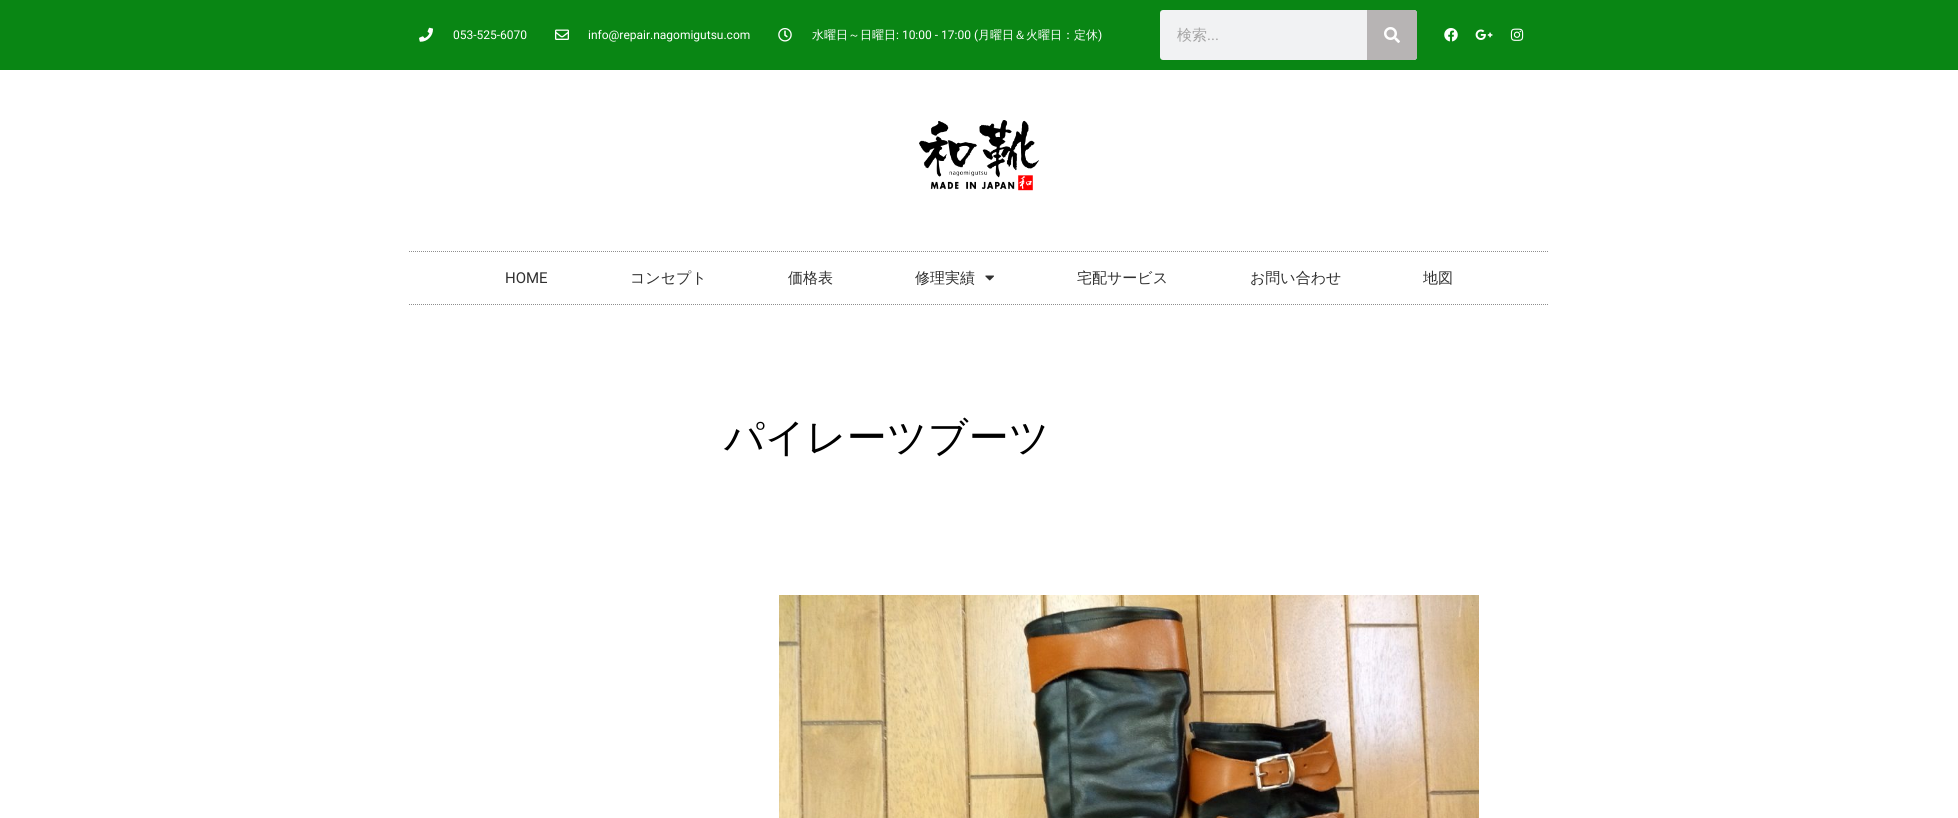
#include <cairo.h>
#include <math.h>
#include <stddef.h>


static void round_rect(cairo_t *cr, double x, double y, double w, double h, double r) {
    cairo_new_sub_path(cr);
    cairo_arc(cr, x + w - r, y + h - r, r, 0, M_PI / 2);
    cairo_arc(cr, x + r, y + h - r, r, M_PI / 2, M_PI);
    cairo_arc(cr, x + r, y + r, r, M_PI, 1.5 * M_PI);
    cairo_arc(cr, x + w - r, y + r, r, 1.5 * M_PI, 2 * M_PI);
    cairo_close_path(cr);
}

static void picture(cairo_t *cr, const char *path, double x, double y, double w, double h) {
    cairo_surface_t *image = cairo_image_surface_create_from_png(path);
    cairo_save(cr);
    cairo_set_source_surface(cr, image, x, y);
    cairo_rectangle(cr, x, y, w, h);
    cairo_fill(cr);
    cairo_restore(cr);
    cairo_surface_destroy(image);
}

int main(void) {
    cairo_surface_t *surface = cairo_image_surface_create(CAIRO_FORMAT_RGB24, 1958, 818);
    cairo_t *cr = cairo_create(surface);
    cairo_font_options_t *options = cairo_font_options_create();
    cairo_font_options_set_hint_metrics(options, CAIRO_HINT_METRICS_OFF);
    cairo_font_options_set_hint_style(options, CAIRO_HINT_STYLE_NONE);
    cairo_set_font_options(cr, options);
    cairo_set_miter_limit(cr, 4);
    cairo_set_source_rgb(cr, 1, 1, 1);
    cairo_paint(cr);
    cairo_set_source_rgb(cr, 0.039, 0.525, 0.082);
    cairo_rectangle(cr, 0, 0, 1958, 70);
    cairo_fill(cr);
    picture(cr, "img1.png", 419, 27, 14, 15);
    cairo_select_font_face(cr, "Roboto", CAIRO_FONT_SLANT_NORMAL, CAIRO_FONT_WEIGHT_NORMAL);
    cairo_set_font_size(cr, 12);
    cairo_set_source_rgb(cr, 1, 1, 1);
    cairo_move_to(cr, 453, 39);
    cairo_show_text(cr, "053-525-6070");
    picture(cr, "img2.png", 555, 29, 14, 11);
    cairo_move_to(cr, 588, 39);
    cairo_show_text(cr, "info@repair.nagomigutsu.com");
    picture(cr, "img3.png", 778, 28, 14, 14);
    cairo_select_font_face(cr, "WenQuanYi Zen Hei Medium", CAIRO_FONT_SLANT_NORMAL, CAIRO_FONT_WEIGHT_NORMAL);
    cairo_move_to(cr, 812, 39);
    cairo_show_text(cr, "水曜日～日曜日");
    cairo_select_font_face(cr, "Roboto", CAIRO_FONT_SLANT_NORMAL, CAIRO_FONT_WEIGHT_NORMAL);
    cairo_move_to(cr, 896, 39);
    cairo_show_text(cr, ": 10:00 - 17:00 (");
    cairo_select_font_face(cr, "WenQuanYi Zen Hei Medium", CAIRO_FONT_SLANT_NORMAL, CAIRO_FONT_WEIGHT_NORMAL);
    cairo_move_to(cr, 978, 39);
    cairo_show_text(cr, "月曜日＆火曜日：定休");
    cairo_select_font_face(cr, "Roboto", CAIRO_FONT_SLANT_NORMAL, CAIRO_FONT_WEIGHT_NORMAL);
    cairo_move_to(cr, 1098, 39);
    cairo_show_text(cr, ")");
    cairo_set_source_rgb(cr, 0.945, 0.949, 0.953);
    round_rect(cr, 1160, 10, 257, 50, 3);
    cairo_fill(cr);
    cairo_select_font_face(cr, "WenQuanYi Zen Hei Medium", CAIRO_FONT_SLANT_NORMAL, CAIRO_FONT_WEIGHT_NORMAL);
    cairo_set_font_size(cr, 15);
    cairo_set_source_rgb(cr, 0.643, 0.643, 0.643);
    cairo_move_to(cr, 1177, 40);
    cairo_show_text(cr, "検索");
    cairo_select_font_face(cr, "Roboto", CAIRO_FONT_SLANT_NORMAL, CAIRO_FONT_WEIGHT_NORMAL);
    cairo_move_to(cr, 1207, 40);
    cairo_show_text(cr, "...");
    cairo_set_source_rgb(cr, 0.718, 0.706, 0.706);
    cairo_new_path(cr);
    cairo_move_to(cr, 1367, 10);
    cairo_line_to(cr, 1414, 10);
    cairo_curve_to(cr, 1415.5, 10, 1417, 11.5, 1417, 13);
    cairo_line_to(cr, 1417, 57);
    cairo_curve_to(cr, 1417, 58.5, 1415.5, 60, 1414, 60);
    cairo_line_to(cr, 1367, 60);
    cairo_close_path(cr);
    cairo_fill(cr);
    picture(cr, "img4.png", 1384, 27, 16, 16);
    picture(cr, "img5.png", 1444, 28, 14, 14);
    picture(cr, "img6.png", 1475, 29, 18, 11);
    picture(cr, "img7.png", 1510, 28, 14, 13);
    picture(cr, "img8.png", 919, 120, 120, 71);
    cairo_new_path(cr);
    cairo_move_to(cr, 409, 251.5);
    cairo_line_to(cr, 1549, 251.5);
    cairo_set_source_rgb(cr, 0.557, 0.557, 0.557);
    cairo_set_line_width(cr, 1);
    cairo_set_dash(cr, (double[]){1, 1}, 2, 0);
    cairo_stroke(cr);
    cairo_new_path(cr);
    cairo_move_to(cr, 409, 304.5);
    cairo_line_to(cr, 1549, 304.5);
    cairo_stroke(cr);
    cairo_set_source_rgb(cr, 0.188, 0.188, 0.188);
    cairo_move_to(cr, 505, 283);
    cairo_show_text(cr, "HOME");
    cairo_select_font_face(cr, "WenQuanYi Zen Hei Medium", CAIRO_FONT_SLANT_NORMAL, CAIRO_FONT_WEIGHT_NORMAL);
    cairo_move_to(cr, 630, 283);
    cairo_show_text(cr, "コンセプト");
    cairo_move_to(cr, 788, 283);
    cairo_show_text(cr, "価格表");
    cairo_move_to(cr, 915, 283);
    cairo_show_text(cr, "修理実績");
    picture(cr, "img9.png", 985, 275, 9, 6);
    cairo_move_to(cr, 1077, 283);
    cairo_show_text(cr, "宅配サービス");
    cairo_move_to(cr, 1250, 283);
    cairo_show_text(cr, "お問い合わせ");
    cairo_move_to(cr, 1423, 283);
    cairo_show_text(cr, "地図");
    cairo_set_font_size(cr, 40);
    cairo_set_source_rgb(cr, 0, 0, 0);
    cairo_move_to(cr, 724, 451);
    cairo_show_text(cr, "パイレーツブーツ");
    picture(cr, "img10.png", 779, 595, 700, 223);
    cairo_surface_write_to_png(surface, "page.png");
    cairo_font_options_destroy(options);
    cairo_destroy(cr);
    cairo_surface_destroy(surface);
    return 0;
}
